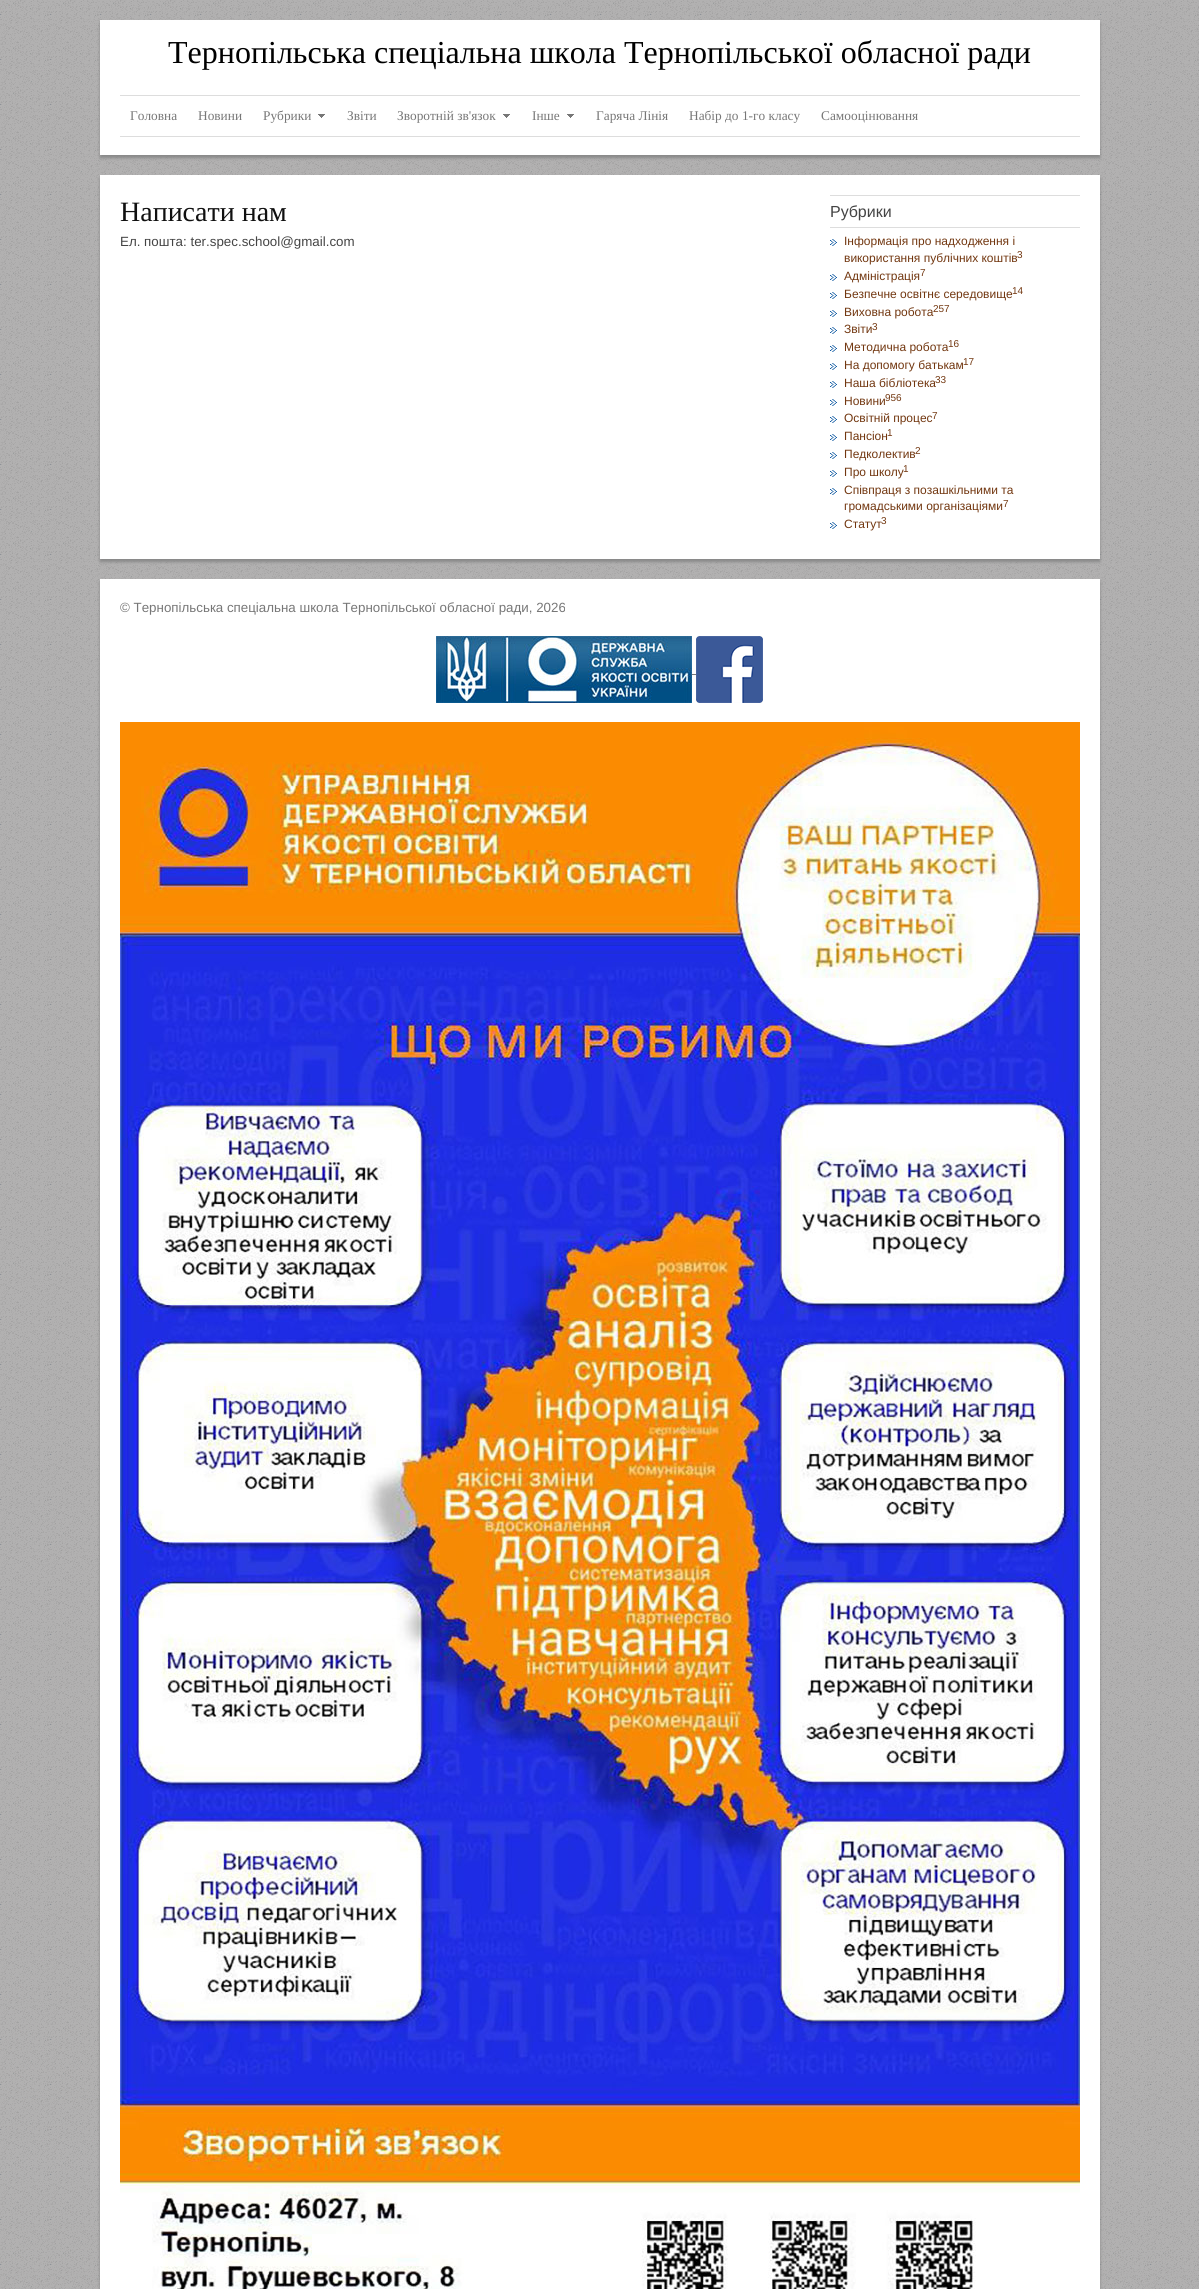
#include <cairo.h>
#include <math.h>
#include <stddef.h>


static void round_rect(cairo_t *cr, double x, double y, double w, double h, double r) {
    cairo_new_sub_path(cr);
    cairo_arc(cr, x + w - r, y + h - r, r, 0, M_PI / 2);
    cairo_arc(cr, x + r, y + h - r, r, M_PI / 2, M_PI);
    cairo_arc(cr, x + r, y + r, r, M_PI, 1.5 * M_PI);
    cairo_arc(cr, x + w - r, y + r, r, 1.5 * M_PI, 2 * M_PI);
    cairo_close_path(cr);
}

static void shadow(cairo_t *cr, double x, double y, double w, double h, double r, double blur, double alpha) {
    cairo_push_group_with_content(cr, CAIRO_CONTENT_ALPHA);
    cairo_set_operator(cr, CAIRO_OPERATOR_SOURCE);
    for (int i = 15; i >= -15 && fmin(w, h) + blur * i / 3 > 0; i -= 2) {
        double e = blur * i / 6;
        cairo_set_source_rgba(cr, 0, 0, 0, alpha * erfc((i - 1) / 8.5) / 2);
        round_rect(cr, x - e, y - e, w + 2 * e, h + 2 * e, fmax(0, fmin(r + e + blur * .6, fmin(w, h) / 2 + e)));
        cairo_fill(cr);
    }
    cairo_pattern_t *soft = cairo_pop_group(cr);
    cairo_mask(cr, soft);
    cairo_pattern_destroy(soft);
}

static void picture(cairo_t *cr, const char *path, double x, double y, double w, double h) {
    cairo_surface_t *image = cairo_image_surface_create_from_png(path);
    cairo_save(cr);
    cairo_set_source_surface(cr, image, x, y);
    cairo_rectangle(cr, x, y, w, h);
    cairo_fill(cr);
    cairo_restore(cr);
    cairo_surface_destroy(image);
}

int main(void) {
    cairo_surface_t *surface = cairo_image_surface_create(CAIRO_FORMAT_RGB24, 1199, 2289);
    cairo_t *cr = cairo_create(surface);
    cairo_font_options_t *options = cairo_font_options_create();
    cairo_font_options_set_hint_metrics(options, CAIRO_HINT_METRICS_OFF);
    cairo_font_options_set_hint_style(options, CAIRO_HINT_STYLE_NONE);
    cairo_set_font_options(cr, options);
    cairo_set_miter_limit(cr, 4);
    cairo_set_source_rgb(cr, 1, 1, 1);
    cairo_paint(cr);
    picture(cr, "img1.png", 0, 0, 1199, 2289);
    cairo_set_source_rgb(cr, 0.533, 0.533, 0.533);
    shadow(cr, 100, 23, 1000, 135, 0, 1.5, 1);
    cairo_set_source_rgb(cr, 1, 1, 1);
    cairo_rectangle(cr, 100, 20, 1000, 135);
    cairo_fill(cr);
    cairo_select_font_face(cr, "Liberation Serif", CAIRO_FONT_SLANT_NORMAL, CAIRO_FONT_WEIGHT_NORMAL);
    cairo_set_font_size(cr, 32);
    cairo_set_source_rgb(cr, 0, 0, 0);
    cairo_move_to(cr, 168, 63);
    cairo_show_text(cr, "Тернопільська спеціальна школа Тернопільської обласної ради");
    cairo_set_source_rgb(cr, 0.867, 0.867, 0.867);
    cairo_rectangle(cr, 120, 95, 960, 1);
    cairo_fill(cr);
    cairo_rectangle(cr, 120, 136, 960, 1);
    cairo_fill(cr);
    cairo_set_font_size(cr, 13.35);
    cairo_set_source_rgb(cr, 0.467, 0.467, 0.467);
    cairo_move_to(cr, 130, 120);
    cairo_show_text(cr, "Головна");
    cairo_move_to(cr, 198, 120);
    cairo_show_text(cr, "Новини");
    picture(cr, "img2.png", 318, 114, 7, 4);
    cairo_move_to(cr, 263, 120);
    cairo_show_text(cr, "Рубрики");
    cairo_move_to(cr, 347, 120);
    cairo_show_text(cr, "Звіти");
    picture(cr, "img2.png", 503, 114, 7, 4);
    cairo_move_to(cr, 397, 120);
    cairo_show_text(cr, "Зворотній зв'язок");
    picture(cr, "img2.png", 567, 114, 7, 4);
    cairo_move_to(cr, 532, 120);
    cairo_show_text(cr, "Інше");
    cairo_move_to(cr, 596, 120);
    cairo_show_text(cr, "Гаряча Лінія");
    cairo_move_to(cr, 689, 120);
    cairo_show_text(cr, "Набір до 1-го класу");
    cairo_move_to(cr, 821, 120);
    cairo_show_text(cr, "Самооцінювання");
    cairo_set_source_rgb(cr, 0.533, 0.533, 0.533);
    shadow(cr, 100, 178, 1000, 384, 0, 1.5, 1);
    cairo_set_source_rgb(cr, 1, 1, 1);
    cairo_rectangle(cr, 100, 175, 1000, 384);
    cairo_fill(cr);
    cairo_set_font_size(cr, 28);
    cairo_set_source_rgb(cr, 0.063, 0.063, 0.063);
    cairo_move_to(cr, 120, 221);
    cairo_show_text(cr, "Написати нам");
    cairo_select_font_face(cr, "Liberation Sans", CAIRO_FONT_SLANT_NORMAL, CAIRO_FONT_WEIGHT_NORMAL);
    cairo_set_font_size(cr, 13.35);
    cairo_set_source_rgb(cr, 0.267, 0.267, 0.267);
    cairo_move_to(cr, 120, 246);
    cairo_show_text(cr, "Ел. пошта: ter.spec.school@gmail.com");
    cairo_set_source_rgb(cr, 0.867, 0.867, 0.867);
    cairo_rectangle(cr, 830, 195, 250, 1);
    cairo_fill(cr);
    cairo_rectangle(cr, 830, 227, 250, 1);
    cairo_fill(cr);
    cairo_set_font_size(cr, 16);
    cairo_set_source_rgb(cr, 0.267, 0.267, 0.267);
    cairo_move_to(cr, 830, 217);
    cairo_show_text(cr, "Рубрики");
    picture(cr, "img3.png", 830, 239, 7, 7);
    cairo_set_font_size(cr, 12);
    cairo_set_source_rgb(cr, 0.447, 0.216, 0.063);
    cairo_move_to(cr, 844, 245);
    cairo_show_text(cr, "Інформація про надходження і");
    cairo_move_to(cr, 844, 262);
    cairo_show_text(cr, "використання публічних коштів");
    cairo_set_font_size(cr, 10);
    cairo_move_to(cr, 1017, 258);
    cairo_show_text(cr, "3");
    picture(cr, "img3.png", 830, 274, 7, 7);
    cairo_set_font_size(cr, 12);
    cairo_move_to(cr, 844, 280);
    cairo_show_text(cr, "Адміністрація");
    cairo_set_font_size(cr, 10);
    cairo_move_to(cr, 920, 276);
    cairo_show_text(cr, "7");
    picture(cr, "img3.png", 830, 292, 7, 7);
    cairo_set_font_size(cr, 12);
    cairo_move_to(cr, 844, 298);
    cairo_show_text(cr, "Безпечне освітнє середовище");
    cairo_set_font_size(cr, 10);
    cairo_move_to(cr, 1012, 294);
    cairo_show_text(cr, "14");
    picture(cr, "img3.png", 830, 310, 7, 7);
    cairo_set_font_size(cr, 12);
    cairo_move_to(cr, 844, 316);
    cairo_show_text(cr, "Виховна робота");
    cairo_set_font_size(cr, 10);
    cairo_move_to(cr, 933, 312);
    cairo_show_text(cr, "257");
    picture(cr, "img3.png", 830, 327, 7, 7);
    cairo_set_font_size(cr, 12);
    cairo_move_to(cr, 844, 333);
    cairo_show_text(cr, "Звіти");
    cairo_set_font_size(cr, 10);
    cairo_move_to(cr, 872, 330);
    cairo_show_text(cr, "3");
    picture(cr, "img3.png", 830, 345, 7, 7);
    cairo_set_font_size(cr, 12);
    cairo_move_to(cr, 844, 351);
    cairo_show_text(cr, "Методична робота");
    cairo_set_font_size(cr, 10);
    cairo_move_to(cr, 948, 347);
    cairo_show_text(cr, "16");
    picture(cr, "img3.png", 830, 363, 7, 7);
    cairo_set_font_size(cr, 12);
    cairo_move_to(cr, 844, 369);
    cairo_show_text(cr, "На допомогу батькам");
    cairo_set_font_size(cr, 10);
    cairo_move_to(cr, 963, 365);
    cairo_show_text(cr, "17");
    picture(cr, "img3.png", 830, 381, 7, 7);
    cairo_set_font_size(cr, 12);
    cairo_move_to(cr, 844, 387);
    cairo_show_text(cr, "Наша бібліотека");
    cairo_set_font_size(cr, 10);
    cairo_move_to(cr, 935, 383);
    cairo_show_text(cr, "33");
    picture(cr, "img3.png", 830, 399, 7, 7);
    cairo_set_font_size(cr, 12);
    cairo_move_to(cr, 844, 405);
    cairo_show_text(cr, "Новини");
    cairo_set_font_size(cr, 10);
    cairo_move_to(cr, 885, 401);
    cairo_show_text(cr, "956");
    picture(cr, "img3.png", 830, 416, 7, 7);
    cairo_set_font_size(cr, 12);
    cairo_move_to(cr, 844, 422);
    cairo_show_text(cr, "Освітній процес");
    cairo_set_font_size(cr, 10);
    cairo_move_to(cr, 932, 419);
    cairo_show_text(cr, "7");
    picture(cr, "img3.png", 830, 434, 7, 7);
    cairo_set_font_size(cr, 12);
    cairo_move_to(cr, 844, 440);
    cairo_show_text(cr, "Пансіон");
    cairo_set_font_size(cr, 10);
    cairo_move_to(cr, 887, 436);
    cairo_show_text(cr, "1");
    picture(cr, "img3.png", 830, 452, 7, 7);
    cairo_set_font_size(cr, 12);
    cairo_move_to(cr, 844, 458);
    cairo_show_text(cr, "Педколектив");
    cairo_set_font_size(cr, 10);
    cairo_move_to(cr, 915, 454);
    cairo_show_text(cr, "2");
    picture(cr, "img3.png", 830, 470, 7, 7);
    cairo_set_font_size(cr, 12);
    cairo_move_to(cr, 844, 476);
    cairo_show_text(cr, "Про школу");
    cairo_set_font_size(cr, 10);
    cairo_move_to(cr, 903, 472);
    cairo_show_text(cr, "1");
    picture(cr, "img3.png", 830, 488, 7, 7);
    cairo_set_font_size(cr, 12);
    cairo_move_to(cr, 844, 494);
    cairo_show_text(cr, "Співпраця з позашкільними та");
    cairo_move_to(cr, 844, 510);
    cairo_show_text(cr, "громадськими організаціями");
    cairo_set_font_size(cr, 10);
    cairo_move_to(cr, 1003, 507);
    cairo_show_text(cr, "7");
    picture(cr, "img3.png", 830, 522, 7, 7);
    cairo_set_font_size(cr, 12);
    cairo_move_to(cr, 844, 528);
    cairo_show_text(cr, "Статут");
    cairo_set_font_size(cr, 10);
    cairo_move_to(cr, 881, 524);
    cairo_show_text(cr, "3");
    cairo_set_source_rgb(cr, 0.533, 0.533, 0.533);
    shadow(cr, 100, 582, 1000, 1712, 0, 1.5, 1);
    cairo_set_source_rgb(cr, 1, 1, 1);
    cairo_rectangle(cr, 100, 579, 1000, 1710);
    cairo_fill(cr);
    cairo_set_font_size(cr, 13.35);
    cairo_set_source_rgb(cr, 0.467, 0.467, 0.467);
    cairo_move_to(cr, 120, 612);
    cairo_show_text(cr, "© Тернопільська спеціальна школа Тернопільської обласної ради, 2026");
    picture(cr, "img4.png", 436, 636, 256, 67);
    cairo_rectangle(cr, 692, 674, 4, 1);
    cairo_fill(cr);
    picture(cr, "img5.png", 696, 636, 67, 67);
    picture(cr, "img6.png", 120, 722, 960, 1567);
    cairo_surface_write_to_png(surface, "page.png");
    cairo_font_options_destroy(options);
    cairo_destroy(cr);
    cairo_surface_destroy(surface);
    return 0;
}
